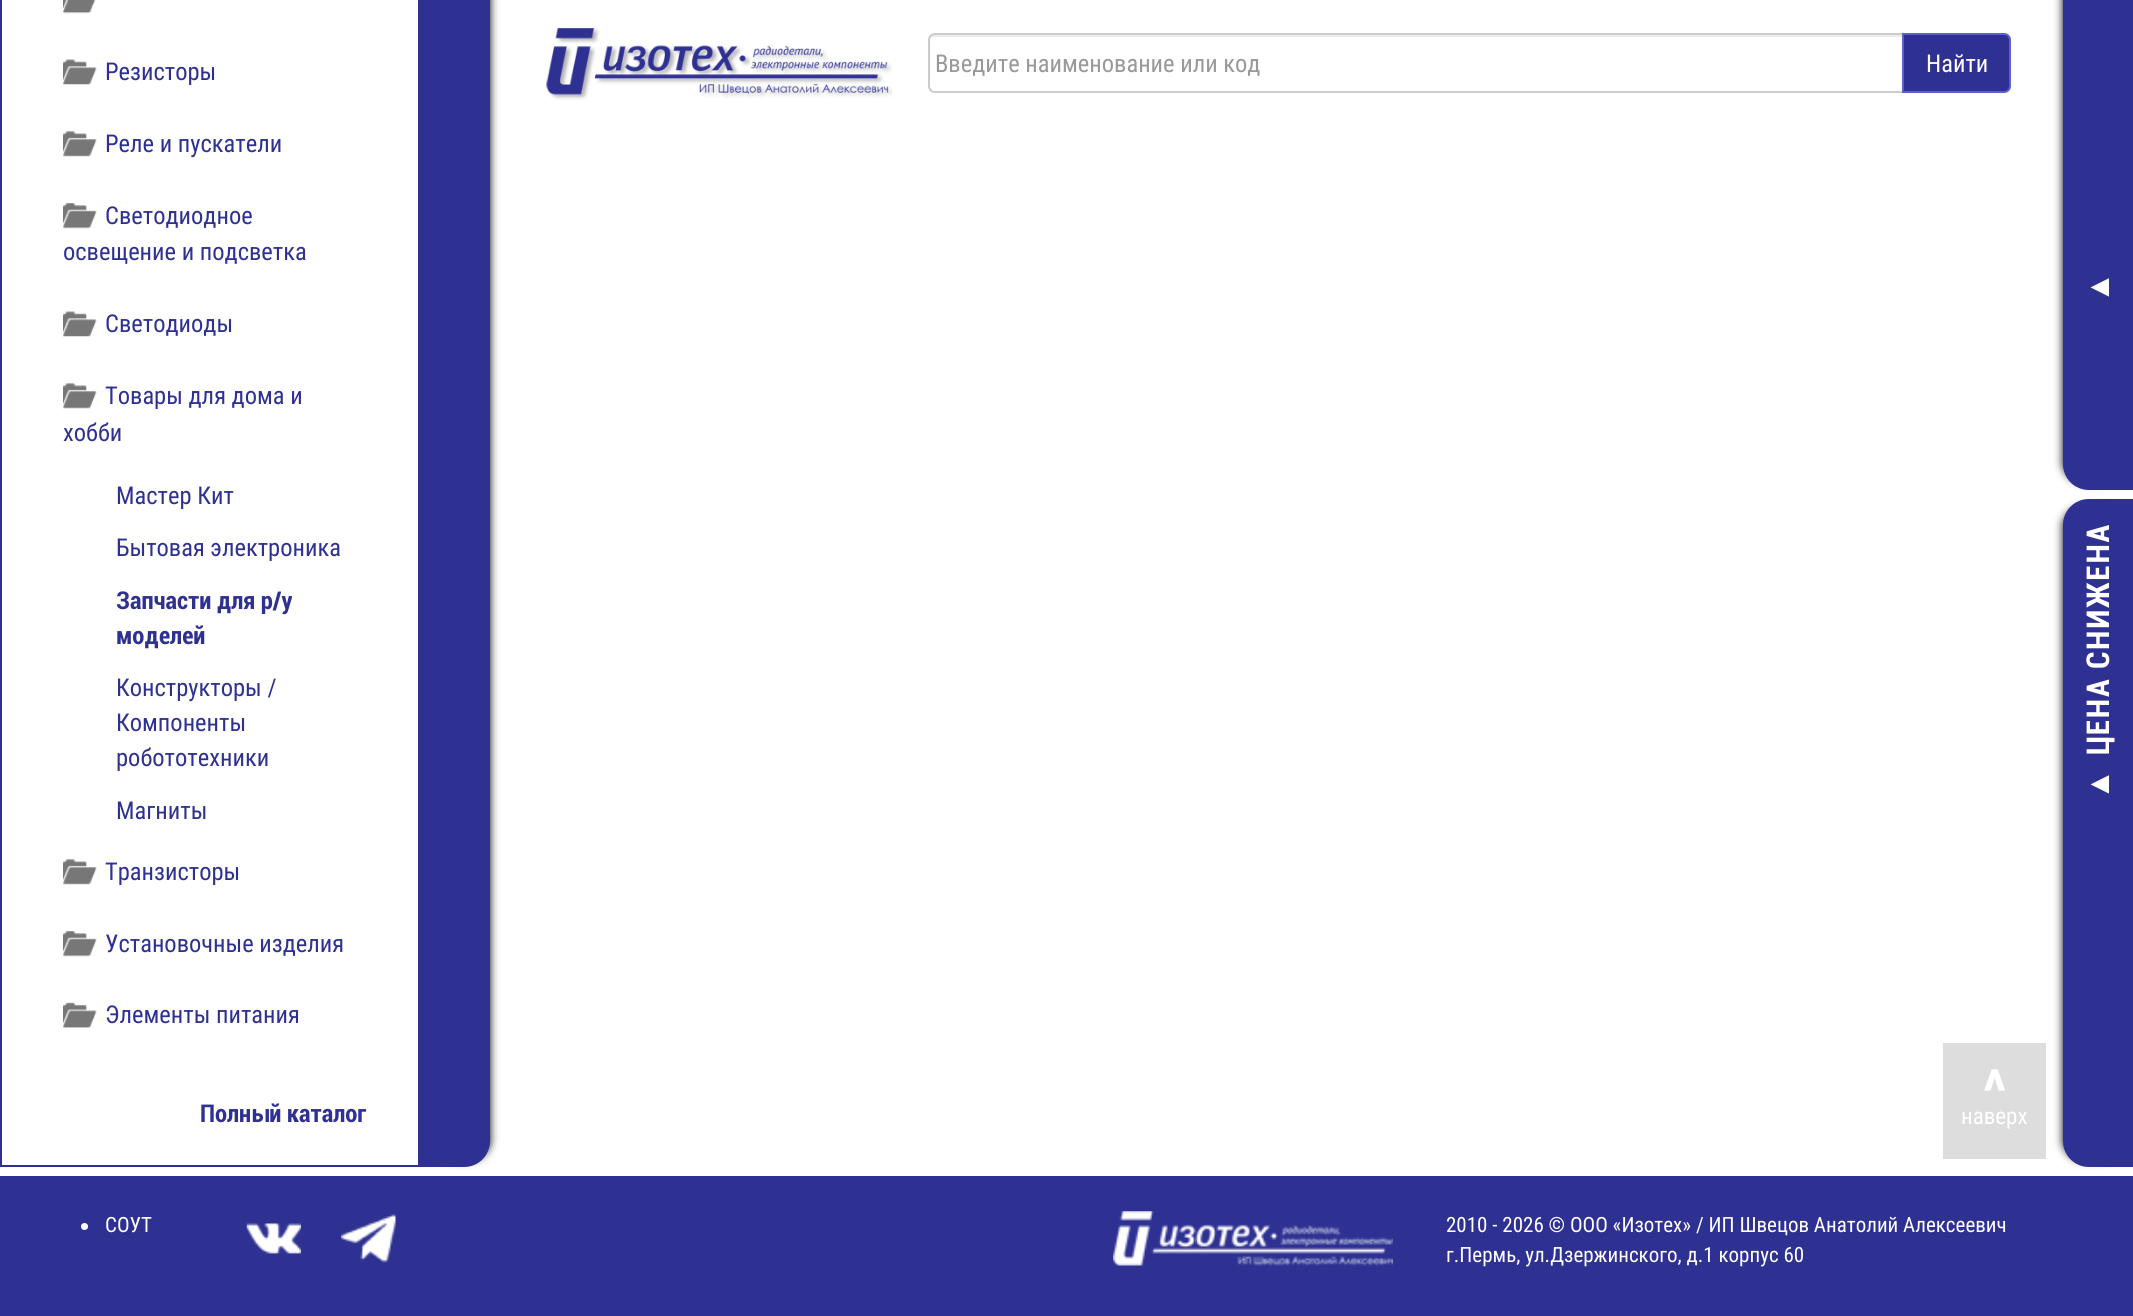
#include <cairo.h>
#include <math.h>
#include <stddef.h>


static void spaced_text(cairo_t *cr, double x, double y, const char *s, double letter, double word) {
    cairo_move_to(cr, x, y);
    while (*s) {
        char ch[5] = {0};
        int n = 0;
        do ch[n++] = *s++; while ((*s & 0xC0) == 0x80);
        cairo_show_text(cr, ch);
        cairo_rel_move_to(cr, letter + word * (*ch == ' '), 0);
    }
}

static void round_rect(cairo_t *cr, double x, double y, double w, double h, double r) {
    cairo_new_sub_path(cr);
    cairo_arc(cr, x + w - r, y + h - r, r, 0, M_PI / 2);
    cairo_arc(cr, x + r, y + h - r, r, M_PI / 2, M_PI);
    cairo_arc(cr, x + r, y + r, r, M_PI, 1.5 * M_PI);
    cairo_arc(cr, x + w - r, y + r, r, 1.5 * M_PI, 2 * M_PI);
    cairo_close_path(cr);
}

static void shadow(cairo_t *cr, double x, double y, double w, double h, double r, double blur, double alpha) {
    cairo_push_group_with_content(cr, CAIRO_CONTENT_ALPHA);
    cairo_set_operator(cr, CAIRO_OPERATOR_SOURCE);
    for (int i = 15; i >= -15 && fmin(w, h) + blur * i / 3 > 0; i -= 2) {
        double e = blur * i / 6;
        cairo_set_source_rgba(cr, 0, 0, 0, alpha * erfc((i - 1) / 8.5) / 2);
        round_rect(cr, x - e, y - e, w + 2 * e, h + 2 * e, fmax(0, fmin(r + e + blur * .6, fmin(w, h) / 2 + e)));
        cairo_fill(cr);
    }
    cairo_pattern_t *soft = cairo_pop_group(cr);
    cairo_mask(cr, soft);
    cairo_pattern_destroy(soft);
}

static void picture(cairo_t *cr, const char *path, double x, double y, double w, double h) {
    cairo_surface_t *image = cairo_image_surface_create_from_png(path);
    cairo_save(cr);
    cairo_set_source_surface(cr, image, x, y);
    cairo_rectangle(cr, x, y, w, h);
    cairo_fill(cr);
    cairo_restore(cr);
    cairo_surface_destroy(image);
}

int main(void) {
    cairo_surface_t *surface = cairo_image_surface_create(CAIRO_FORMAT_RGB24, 2133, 1316);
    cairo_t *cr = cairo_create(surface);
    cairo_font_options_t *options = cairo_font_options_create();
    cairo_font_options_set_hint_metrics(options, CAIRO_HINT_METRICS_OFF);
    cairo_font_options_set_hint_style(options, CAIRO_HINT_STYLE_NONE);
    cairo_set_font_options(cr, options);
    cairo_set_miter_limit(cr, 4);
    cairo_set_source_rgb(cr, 1, 1, 1);
    cairo_paint(cr);
    cairo_set_source_rgb(cr, 0, 0, 0);
    shadow(cr, 438, -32, 52, 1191, 18, 4.5, 1);
    cairo_set_source_rgb(cr, 0.18, 0.192, 0.573);
    cairo_new_path(cr);
    cairo_move_to(cr, 420, -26);
    cairo_line_to(cr, 464, -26);
    cairo_curve_to(cr, 478.5, -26, 490, -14.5, 490, 0);
    cairo_line_to(cr, 490, 1141);
    cairo_curve_to(cr, 490, 1155.5, 478.5, 1167, 464, 1167);
    cairo_line_to(cr, 420, 1167);
    cairo_close_path(cr);
    cairo_fill(cr);
    cairo_rectangle(cr, 1, -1, 418, 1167);
    cairo_stroke(cr);
    picture(cr, "img1.png", 63, 0, 33, 14);
    picture(cr, "img2.png", 63, 59, 34, 26);
    cairo_select_font_face(cr, "Roboto Condensed", CAIRO_FONT_SLANT_NORMAL, CAIRO_FONT_WEIGHT_NORMAL);
    cairo_set_font_size(cr, 24.5);
    cairo_move_to(cr, 105, 80);
    cairo_show_text(cr, "Резисторы");
    picture(cr, "img3.png", 63, 131, 34, 26);
    cairo_move_to(cr, 105, 152);
    cairo_show_text(cr, "Реле и пускатели");
    picture(cr, "img4.png", 63, 203, 34, 26);
    cairo_move_to(cr, 105, 224);
    cairo_show_text(cr, "Светодиодное");
    cairo_move_to(cr, 63, 260);
    cairo_show_text(cr, "освещение и подсветка");
    picture(cr, "img2.png", 63, 311, 34, 26);
    cairo_move_to(cr, 105, 332);
    cairo_show_text(cr, "Светодиоды");
    picture(cr, "img3.png", 63, 383, 34, 26);
    cairo_move_to(cr, 105, 404);
    cairo_show_text(cr, "Товары для дома и");
    cairo_move_to(cr, 63, 441);
    cairo_show_text(cr, "хобби");
    cairo_move_to(cr, 116, 504);
    cairo_show_text(cr, "Мастер Кит");
    cairo_move_to(cr, 116, 556);
    cairo_show_text(cr, "Бытовая электроника");
    cairo_select_font_face(cr, "Roboto", CAIRO_FONT_SLANT_NORMAL, CAIRO_FONT_WEIGHT_BOLD);
    cairo_move_to(cr, 116, 609);
    cairo_show_text(cr, "Запчасти для р/у");
    cairo_move_to(cr, 116, 644);
    cairo_show_text(cr, "моделей");
    cairo_select_font_face(cr, "Roboto Condensed", CAIRO_FONT_SLANT_NORMAL, CAIRO_FONT_WEIGHT_NORMAL);
    cairo_move_to(cr, 116, 696);
    cairo_show_text(cr, "Конструкторы /");
    cairo_move_to(cr, 116, 731);
    cairo_show_text(cr, "Компоненты");
    cairo_move_to(cr, 116, 766);
    cairo_show_text(cr, "робототехники");
    cairo_move_to(cr, 116, 819);
    cairo_show_text(cr, "Магниты");
    picture(cr, "img3.png", 63, 859, 34, 26);
    cairo_move_to(cr, 105, 880);
    cairo_show_text(cr, "Транзисторы");
    picture(cr, "img4.png", 63, 931, 34, 26);
    cairo_move_to(cr, 105, 952);
    cairo_show_text(cr, "Установочные изделия");
    picture(cr, "img5.png", 63, 1002, 34, 26);
    cairo_move_to(cr, 105, 1023);
    cairo_show_text(cr, "Элементы питания");
    cairo_select_font_face(cr, "Roboto", CAIRO_FONT_SLANT_NORMAL, CAIRO_FONT_WEIGHT_BOLD);
    cairo_move_to(cr, 200, 1122);
    cairo_show_text(cr, "Полный каталог");
    picture(cr, "img6.png", 546, 28, 347, 72);
    cairo_set_source_rgb(cr, 0.925, 0.925, 0.925);
    cairo_new_path(cr);
    cairo_move_to(cr, 934, 37);
    cairo_line_to(cr, 1902, 37);
    cairo_line_to(cr, 1902, 35);
    cairo_line_to(cr, 934, 35);
    cairo_curve_to(cr, 930, 35, 929, 39, 929, 42);
    cairo_curve_to(cr, 929, 39, 932, 37, 934, 37);
    cairo_close_path(cr);
    cairo_fill(cr);
    cairo_new_path(cr);
    cairo_move_to(cr, 935, 34);
    cairo_line_to(cr, 1903, 34);
    cairo_line_to(cr, 1903, 92);
    cairo_line_to(cr, 935, 92);
    cairo_curve_to(cr, 931.5, 92, 929, 89.5, 929, 86);
    cairo_line_to(cr, 929, 40);
    cairo_curve_to(cr, 929, 36.5, 931.5, 34, 935, 34);
    cairo_close_path(cr);
    cairo_set_source_rgb(cr, 0.8, 0.8, 0.8);
    cairo_stroke(cr);
    cairo_select_font_face(cr, "Roboto Condensed", CAIRO_FONT_SLANT_NORMAL, CAIRO_FONT_WEIGHT_NORMAL);
    cairo_set_source_rgb(cr, 0.6, 0.6, 0.6);
    cairo_move_to(cr, 935, 72);
    cairo_show_text(cr, "Введите наименование или код");
    cairo_set_source_rgb(cr, 0.18, 0.192, 0.573);
    cairo_new_path(cr);
    cairo_move_to(cr, 1903, 34);
    cairo_line_to(cr, 2004, 34);
    cairo_curve_to(cr, 2007.5, 34, 2010, 36.5, 2010, 40);
    cairo_line_to(cr, 2010, 86);
    cairo_curve_to(cr, 2010, 89.5, 2007.5, 92, 2004, 92);
    cairo_line_to(cr, 1903, 92);
    cairo_close_path(cr);
    cairo_fill_preserve(cr);
    cairo_set_source_rgb(cr, 0.361, 0.376, 0.8);
    cairo_stroke(cr);
    cairo_set_source_rgb(cr, 1, 1, 1);
    cairo_move_to(cr, 1926, 72);
    cairo_show_text(cr, "Найти");
    cairo_set_source_rgb(cr, 0, 0, 0);
    shadow(cr, 2063, -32, 53, 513, 18, 4.5, 1);
    cairo_set_source_rgb(cr, 0.18, 0.192, 0.573);
    cairo_new_path(cr);
    cairo_move_to(cr, 2089, -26);
    cairo_line_to(cr, 2133, -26);
    cairo_line_to(cr, 2133, 490);
    cairo_line_to(cr, 2089, 490);
    cairo_curve_to(cr, 2074.5, 490, 2063, 478.5, 2063, 464);
    cairo_line_to(cr, 2063, 0);
    cairo_curve_to(cr, 2063, -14.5, 2074.5, -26, 2089, -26);
    cairo_close_path(cr);
    cairo_fill(cr);
    cairo_select_font_face(cr, "Liberation Sans", CAIRO_FONT_SLANT_NORMAL, CAIRO_FONT_WEIGHT_BOLD);
    cairo_set_font_size(cr, 31.5);
    cairo_set_source_rgb(cr, 1, 1, 1);
    cairo_save(cr);
    cairo_translate(cr, 2109, 303);
    cairo_rotate(cr, -90 * M_PI / 180);
    spaced_text(cr, 0, 0, "▲", 1.75, 0);
    cairo_restore(cr);
    cairo_set_source_rgb(cr, 0, 0, 0);
    shadow(cr, 2063, 508, 53, 651, 18, 4.5, 1);
    cairo_set_source_rgb(cr, 0.18, 0.192, 0.573);
    cairo_new_path(cr);
    cairo_move_to(cr, 2089, 499);
    cairo_line_to(cr, 2133, 499);
    cairo_line_to(cr, 2133, 1167);
    cairo_line_to(cr, 2089, 1167);
    cairo_curve_to(cr, 2074.5, 1167, 2063, 1155.5, 2063, 1141);
    cairo_line_to(cr, 2063, 525);
    cairo_curve_to(cr, 2063, 510.5, 2074.5, 499, 2089, 499);
    cairo_close_path(cr);
    cairo_fill(cr);
    cairo_select_font_face(cr, "Roboto", CAIRO_FONT_SLANT_NORMAL, CAIRO_FONT_WEIGHT_BOLD);
    cairo_set_source_rgb(cr, 1, 1, 1);
    cairo_save(cr);
    cairo_translate(cr, 2109, 758);
    cairo_rotate(cr, -90 * M_PI / 180);
    spaced_text(cr, 0, 0, "ЦЕНА СНИЖЕНА", 1.75, 0);
    cairo_restore(cr);
    cairo_select_font_face(cr, "Liberation Sans", CAIRO_FONT_SLANT_NORMAL, CAIRO_FONT_WEIGHT_BOLD);
    cairo_save(cr);
    cairo_translate(cr, 2109, 800);
    cairo_rotate(cr, -90 * M_PI / 180);
    spaced_text(cr, 0, 0, "▲", 1.75, 0);
    cairo_restore(cr);
    cairo_set_source_rgb(cr, 0.867, 0.867, 0.867);
    cairo_rectangle(cr, 1943, 1043, 103, 116);
    cairo_fill(cr);
    cairo_select_font_face(cr, "Roboto", CAIRO_FONT_SLANT_NORMAL, CAIRO_FONT_WEIGHT_BOLD);
    cairo_set_font_size(cr, 60);
    cairo_set_source_rgb(cr, 1, 1, 1);
    cairo_move_to(cr, 1983, 1112);
    cairo_show_text(cr, "^");
    cairo_select_font_face(cr, "Roboto Condensed", CAIRO_FONT_SLANT_NORMAL, CAIRO_FONT_WEIGHT_NORMAL);
    cairo_set_font_size(cr, 23);
    cairo_move_to(cr, 1961, 1124);
    cairo_show_text(cr, "наверх");
    cairo_set_source_rgb(cr, 0.18, 0.192, 0.573);
    cairo_rectangle(cr, 0, 1176, 2133, 140);
    cairo_fill(cr);
    cairo_set_source_rgb(cr, 1, 1, 1);
    cairo_arc(cr, 84.5, 1226.5, 3.5, 0, 2 * M_PI);
    cairo_fill(cr);
    cairo_set_font_size(cr, 21);
    cairo_move_to(cr, 105, 1232);
    cairo_show_text(cr, "СОУТ");
    picture(cr, "img7.png", 246, 1223, 55, 31);
    picture(cr, "img8.png", 341, 1214, 55, 49);
    picture(cr, "img9.png", 1113, 1211, 280, 55);
    cairo_move_to(cr, 1446, 1232);
    cairo_show_text(cr, "2010 - 2026 © ООО «Изотех» / ИП Швецов Анатолий Алексеевич");
    cairo_move_to(cr, 1446, 1262);
    cairo_show_text(cr, "г.Пермь, ул.Дзержинского, д.1 корпус 60");
    cairo_surface_write_to_png(surface, "page.png");
    cairo_font_options_destroy(options);
    cairo_destroy(cr);
    cairo_surface_destroy(surface);
    return 0;
}
